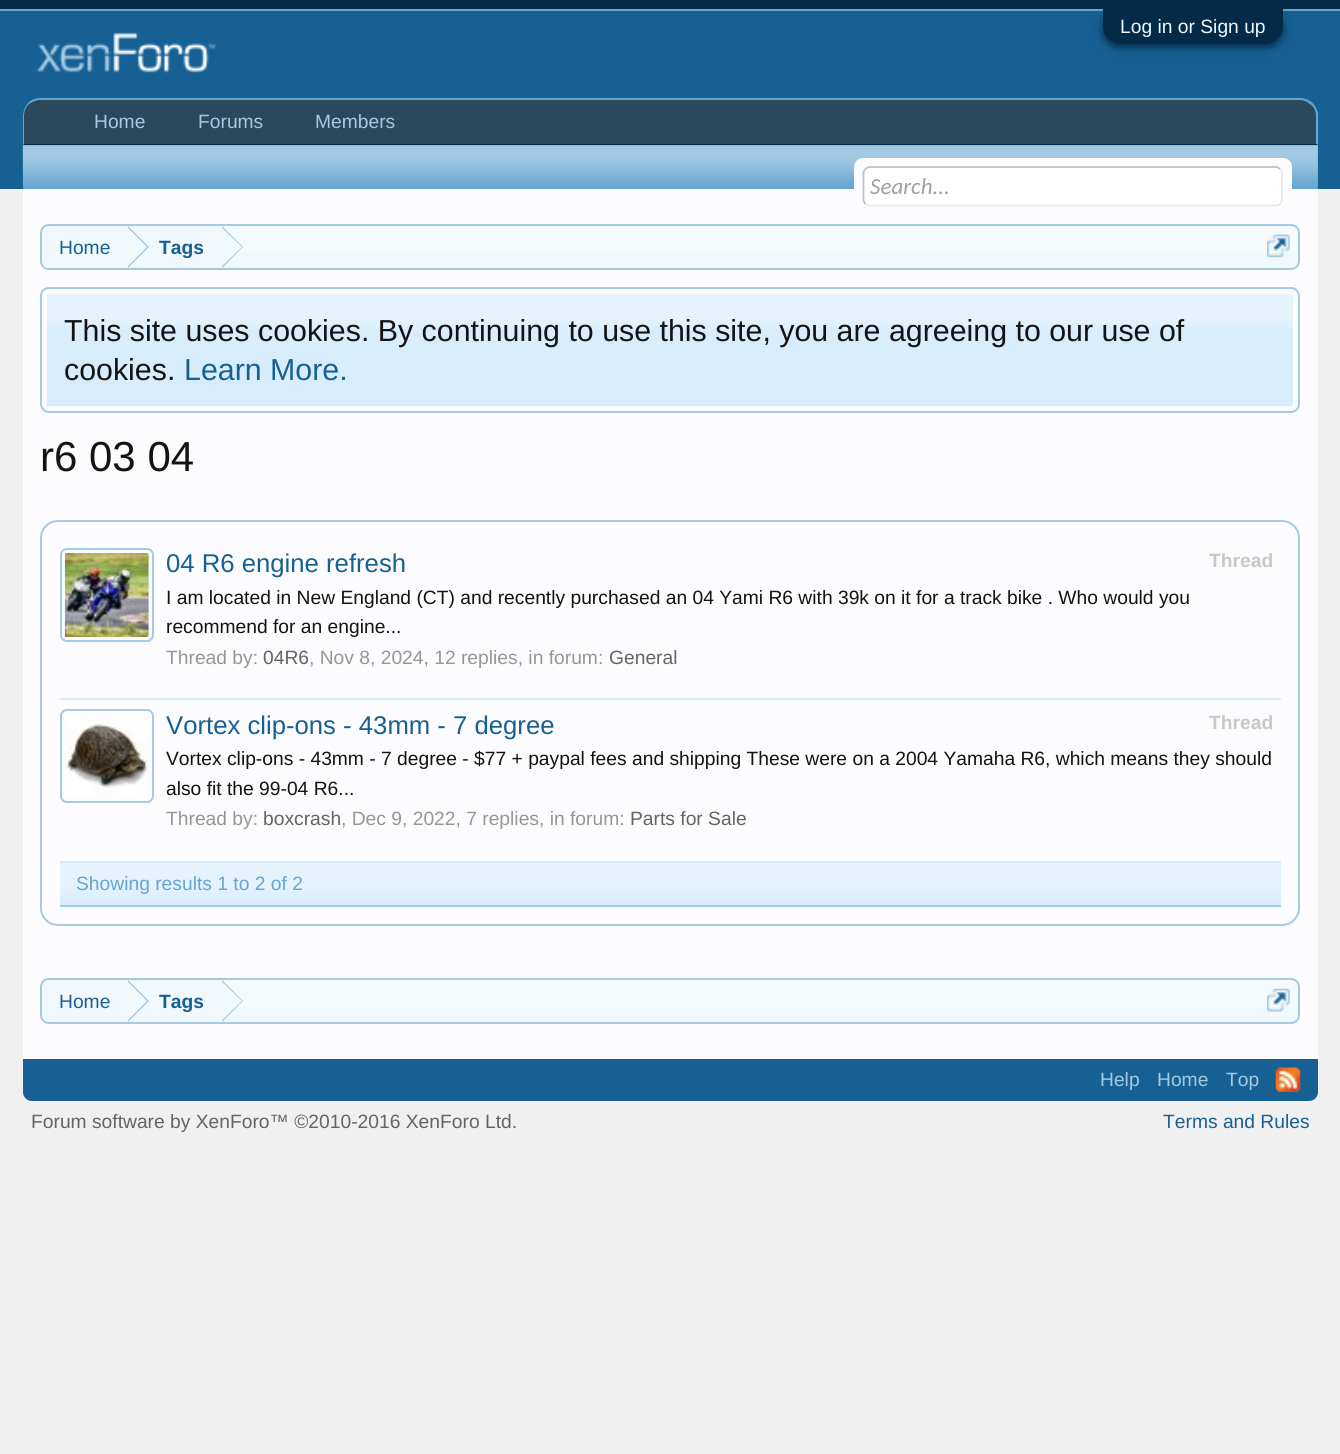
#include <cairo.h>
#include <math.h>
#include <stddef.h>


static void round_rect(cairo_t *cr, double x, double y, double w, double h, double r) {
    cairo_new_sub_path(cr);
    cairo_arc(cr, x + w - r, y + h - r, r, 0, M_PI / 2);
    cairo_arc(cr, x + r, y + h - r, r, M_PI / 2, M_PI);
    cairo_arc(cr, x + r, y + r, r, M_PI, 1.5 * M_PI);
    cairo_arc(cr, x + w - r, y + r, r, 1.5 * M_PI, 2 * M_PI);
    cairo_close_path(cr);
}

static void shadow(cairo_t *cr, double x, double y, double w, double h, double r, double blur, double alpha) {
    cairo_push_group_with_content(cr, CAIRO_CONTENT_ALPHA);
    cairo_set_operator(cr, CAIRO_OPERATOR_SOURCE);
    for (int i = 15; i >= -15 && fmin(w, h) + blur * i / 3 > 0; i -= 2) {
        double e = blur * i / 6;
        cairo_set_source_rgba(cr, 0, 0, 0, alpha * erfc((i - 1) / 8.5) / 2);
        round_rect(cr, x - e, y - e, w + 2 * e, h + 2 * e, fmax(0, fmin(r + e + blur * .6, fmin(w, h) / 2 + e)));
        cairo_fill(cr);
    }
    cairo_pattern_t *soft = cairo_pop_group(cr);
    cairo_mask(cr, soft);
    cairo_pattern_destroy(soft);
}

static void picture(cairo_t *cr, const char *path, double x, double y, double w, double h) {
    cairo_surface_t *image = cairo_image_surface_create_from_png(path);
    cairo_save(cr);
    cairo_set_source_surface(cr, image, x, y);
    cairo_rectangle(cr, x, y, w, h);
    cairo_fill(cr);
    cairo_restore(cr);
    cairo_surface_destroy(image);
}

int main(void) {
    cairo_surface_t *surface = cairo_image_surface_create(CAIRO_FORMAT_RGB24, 1340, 1454);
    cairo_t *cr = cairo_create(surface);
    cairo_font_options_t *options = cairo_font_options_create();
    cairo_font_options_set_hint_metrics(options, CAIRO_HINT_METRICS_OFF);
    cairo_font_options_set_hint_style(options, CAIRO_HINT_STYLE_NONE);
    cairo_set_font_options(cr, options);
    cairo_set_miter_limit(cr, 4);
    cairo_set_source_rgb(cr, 0.941, 0.941, 0.941);
    cairo_paint(cr);
    cairo_set_source_rgb(cr, 0.012, 0.165, 0.275);
    cairo_rectangle(cr, 0, 0, 1340, 9);
    cairo_fill(cr);
    cairo_set_source_rgb(cr, 0.396, 0.647, 0.82);
    cairo_rectangle(cr, 0, 9, 1340, 2);
    cairo_fill(cr);
    cairo_set_source_rgb(cr, 0.09, 0.376, 0.576);
    cairo_rectangle(cr, 0, 11, 1340, 178);
    cairo_fill(cr);
    cairo_set_source_rgb(cr, 0.012, 0.165, 0.275);
    shadow(cr, 1103, 12, 180, 35, 17.5, 4.5, 1);
    cairo_set_source_rgb(cr, 0.012, 0.165, 0.275);
    cairo_new_path(cr);
    cairo_move_to(cr, 1103, 9);
    cairo_line_to(cr, 1283, 9);
    cairo_line_to(cr, 1283, 26.5);
    cairo_curve_to(cr, 1283, 36, 1275, 44, 1265.5, 44);
    cairo_line_to(cr, 1120.5, 44);
    cairo_curve_to(cr, 1111, 44, 1103, 36, 1103, 26.5);
    cairo_close_path(cr);
    cairo_fill(cr);
    cairo_select_font_face(cr, "Liberation Sans", CAIRO_FONT_SLANT_NORMAL, CAIRO_FONT_WEIGHT_NORMAL);
    cairo_set_font_size(cr, 19.25);
    cairo_set_source_rgb(cr, 0.941, 0.969, 0.988);
    cairo_move_to(cr, 1120, 33);
    cairo_show_text(cr, "Log in or Sign up");
    picture(cr, "img1.png", 36, 32, 180, 41);
    cairo_set_source_rgb(cr, 0.169, 0.282, 0.361);
    cairo_new_path(cr);
    cairo_move_to(cr, 41, 98);
    cairo_line_to(cr, 1300, 98);
    cairo_curve_to(cr, 1310, 98, 1318, 106, 1318, 116);
    cairo_line_to(cr, 1318, 145);
    cairo_line_to(cr, 23, 145);
    cairo_line_to(cr, 23, 116);
    cairo_curve_to(cr, 23, 106, 31, 98, 41, 98);
    cairo_close_path(cr);
    cairo_fill(cr);
    cairo_set_source_rgb(cr, 0.396, 0.647, 0.82);
    cairo_new_path(cr);
    cairo_move_to(cr, 40, 98);
    cairo_curve_to(cr, 35, 98, 31, 100, 28, 103);
    cairo_line_to(cr, 29, 104);
    cairo_curve_to(cr, 32, 102, 36, 100, 40, 100);
    cairo_line_to(cr, 1300, 100);
    cairo_curve_to(cr, 1304, 100, 1308, 102, 1311, 105);
    cairo_line_to(cr, 1313, 103);
    cairo_curve_to(cr, 1309, 100, 1305, 98, 1300, 98);
    cairo_close_path(cr);
    cairo_fill(cr);
    cairo_new_path(cr);
    cairo_move_to(cr, 1318, 145);
    cairo_line_to(cr, 1316, 144);
    cairo_line_to(cr, 1316, 116);
    cairo_curve_to(cr, 1316, 111, 1314, 107, 1311, 105);
    cairo_line_to(cr, 1313, 103);
    cairo_curve_to(cr, 1315, 106, 1317, 109, 1318, 113);
    cairo_close_path(cr);
    cairo_fill(cr);
    cairo_set_source_rgb(cr, 0.012, 0.165, 0.275);
    cairo_new_path(cr);
    cairo_move_to(cr, 1318, 145);
    cairo_line_to(cr, 23, 145);
    cairo_line_to(cr, 24, 144);
    cairo_line_to(cr, 1316, 144);
    cairo_close_path(cr);
    cairo_fill(cr);
    cairo_set_source_rgb(cr, 0.396, 0.647, 0.82);
    cairo_new_path(cr);
    cairo_move_to(cr, 28, 103);
    cairo_curve_to(cr, 25, 107, 23, 111, 23, 116);
    cairo_line_to(cr, 23, 145);
    cairo_line_to(cr, 24, 144);
    cairo_line_to(cr, 24, 116);
    cairo_curve_to(cr, 24, 111, 26, 107, 29, 104);
    cairo_close_path(cr);
    cairo_fill(cr);
    cairo_set_source_rgb(cr, 0.647, 0.792, 0.894);
    cairo_move_to(cr, 94, 128);
    cairo_show_text(cr, "Home");
    cairo_move_to(cr, 198, 128);
    cairo_show_text(cr, "Forums");
    cairo_move_to(cr, 315, 128);
    cairo_show_text(cr, "Members");
    cairo_set_source_rgb(cr, 0.396, 0.647, 0.82);
    cairo_rectangle(cr, 23, 145, 1295, 44);
    cairo_fill(cr);
    picture(cr, "img2.png", 22, 145, 1296, 42);
    cairo_set_source_rgb(cr, 0.988, 0.988, 1);
    cairo_rectangle(cr, 23, 189, 1295, 870);
    cairo_fill(cr);
    round_rect(cr, 854, 158, 438, 49, 9);
    cairo_fill(cr);
    cairo_rectangle(cr, 854, 166, 438, 1);
    cairo_fill(cr);
    cairo_set_source_rgb(cr, 1, 1, 1);
    round_rect(cr, 863, 166, 420, 41, 7);
    cairo_fill(cr);
    cairo_new_path(cr);
    cairo_move_to(cr, 1280, 169);
    cairo_curve_to(cr, 1281, 170, 1282, 171.5, 1282, 173);
    cairo_line_to(cr, 1282, 199.5);
    cairo_curve_to(cr, 1282, 201, 1281, 202.5, 1280, 204);
    cairo_curve_to(cr, 1279, 205, 1277.5, 205.5, 1276, 205.5);
    cairo_line_to(cr, 870, 205.5);
    cairo_curve_to(cr, 868, 205.5, 866.5, 205, 865.5, 204);
    cairo_set_source_rgb(cr, 0.914, 0.914, 0.914);
    cairo_set_line_width(cr, 1.8);
    cairo_stroke(cr);
    cairo_new_path(cr);
    cairo_move_to(cr, 865.5, 204);
    cairo_curve_to(cr, 864.5, 202.5, 863.5, 201, 863.5, 199.5);
    cairo_line_to(cr, 863.5, 173);
    cairo_curve_to(cr, 863.5, 171.5, 864.5, 170, 865.5, 169);
    cairo_curve_to(cr, 866.5, 168, 868, 167, 870, 167);
    cairo_line_to(cr, 1276, 167);
    cairo_curve_to(cr, 1277.5, 167, 1279, 168, 1280, 169);
    cairo_set_source_rgb(cr, 0.753, 0.753, 0.753);
    cairo_stroke(cr);
    cairo_select_font_face(cr, "Carlito", CAIRO_FONT_SLANT_ITALIC, CAIRO_FONT_WEIGHT_NORMAL);
    cairo_set_font_size(cr, 23);
    cairo_set_source_rgb(cr, 0.627, 0.627, 0.627);
    cairo_move_to(cr, 870, 194);
    cairo_show_text(cr, "Search...");
    cairo_set_source_rgb(cr, 0.941, 0.969, 0.988);
    round_rect(cr, 40, 224, 1260, 46, 9);
    cairo_fill(cr);
    picture(cr, "img3.png", 41, 226, 1259, 27);
    round_rect(cr, 41, 225, 1258, 44, 8);
    cairo_set_source_rgb(cr, 0.647, 0.792, 0.894);
    cairo_set_line_width(cr, 2);
    cairo_stroke(cr);
    cairo_save(cr);
    round_rect(cr, 42, 226, 1257, 42, 7);
    cairo_clip(cr);
    cairo_set_source_rgb(cr, 0.941, 0.969, 0.988);
    cairo_new_path(cr);
    cairo_move_to(cr, 51, 226);
    cairo_line_to(cr, 128, 226);
    cairo_line_to(cr, 128, 270);
    cairo_line_to(cr, 51, 270);
    cairo_curve_to(cr, 46, 270, 42, 266, 42, 261);
    cairo_line_to(cr, 42, 235);
    cairo_curve_to(cr, 42, 230, 46, 226, 51, 226);
    cairo_close_path(cr);
    cairo_fill(cr);
    cairo_restore(cr);
    cairo_select_font_face(cr, "Liberation Sans", CAIRO_FONT_SLANT_NORMAL, CAIRO_FONT_WEIGHT_NORMAL);
    cairo_set_font_size(cr, 19.25);
    cairo_set_source_rgb(cr, 0.09, 0.376, 0.576);
    cairo_move_to(cr, 59, 254);
    cairo_show_text(cr, "Home");
    cairo_set_source_rgb(cr, 0.941, 0.969, 0.988);
    cairo_rectangle(cr, 128, 226, 94, 27);
    cairo_fill(cr);
    cairo_set_source_rgb(cr, 0.647, 0.792, 0.894);
    cairo_new_path(cr);
    cairo_move_to(cr, 128, 268);
    cairo_line_to(cr, 128, 226);
    cairo_line_to(cr, 149, 247);
    cairo_close_path(cr);
    cairo_fill(cr);
    cairo_set_source_rgb(cr, 0.941, 0.969, 0.988);
    cairo_new_path(cr);
    cairo_move_to(cr, 126, 268);
    cairo_line_to(cr, 126, 226);
    cairo_line_to(cr, 147, 247);
    cairo_close_path(cr);
    cairo_fill(cr);
    cairo_select_font_face(cr, "Liberation Sans", CAIRO_FONT_SLANT_NORMAL, CAIRO_FONT_WEIGHT_BOLD);
    cairo_set_source_rgb(cr, 0.09, 0.376, 0.576);
    cairo_move_to(cr, 159, 254);
    cairo_show_text(cr, "Tags");
    cairo_set_source_rgb(cr, 0.647, 0.792, 0.894);
    cairo_new_path(cr);
    cairo_move_to(cr, 222, 268);
    cairo_line_to(cr, 222, 226);
    cairo_line_to(cr, 243, 247);
    cairo_close_path(cr);
    cairo_fill(cr);
    cairo_set_source_rgb(cr, 0.941, 0.969, 0.988);
    cairo_new_path(cr);
    cairo_move_to(cr, 220, 268);
    cairo_line_to(cr, 220, 226);
    cairo_line_to(cr, 242, 247);
    cairo_close_path(cr);
    cairo_fill(cr);
    picture(cr, "img4.png", 1267, 234, 23, 24);
    round_rect(cr, 41, 288, 1258, 124, 8);
    cairo_set_source_rgb(cr, 0.647, 0.792, 0.894);
    cairo_stroke(cr);
    cairo_set_source_rgb(cr, 0.843, 0.929, 0.988);
    cairo_rectangle(cr, 47, 294, 1246, 112);
    cairo_fill(cr);
    picture(cr, "img5.png", 47, 294, 1246, 35);
    cairo_select_font_face(cr, "Liberation Sans", CAIRO_FONT_SLANT_NORMAL, CAIRO_FONT_WEIGHT_NORMAL);
    cairo_set_font_size(cr, 30.35);
    cairo_set_source_rgb(cr, 0.078, 0.078, 0.078);
    cairo_move_to(cr, 64, 341);
    cairo_show_text(cr, "This site uses cookies. By continuing to use this site, you are agreeing to our use of");
    cairo_move_to(cr, 64, 380);
    cairo_show_text(cr, "cookies.");
    cairo_set_source_rgb(cr, 0.09, 0.376, 0.576);
    cairo_move_to(cr, 184, 380);
    cairo_show_text(cr, "Learn More.");
    cairo_set_font_size(cr, 42);
    cairo_set_source_rgb(cr, 0.078, 0.078, 0.078);
    cairo_move_to(cr, 40, 471);
    cairo_show_text(cr, "r6 03 04");
    round_rect(cr, 41, 521, 1258, 404, 17);
    cairo_set_source_rgb(cr, 0.647, 0.792, 0.894);
    cairo_stroke(cr);
    cairo_set_source_rgb(cr, 0.843, 0.929, 0.988);
    cairo_rectangle(cr, 60, 698, 1221, 2);
    cairo_fill(cr);
    round_rect(cr, 61, 549, 92, 92, 6);
    cairo_set_source_rgb(cr, 0.647, 0.792, 0.894);
    cairo_stroke(cr);
    picture(cr, "img6.png", 64, 553, 85, 84);
    cairo_set_font_size(cr, 25.7);
    cairo_set_source_rgb(cr, 0.09, 0.376, 0.576);
    cairo_move_to(cr, 166, 572);
    cairo_show_text(cr, "04 R6 engine refresh");
    cairo_select_font_face(cr, "Liberation Sans", CAIRO_FONT_SLANT_NORMAL, CAIRO_FONT_WEIGHT_BOLD);
    cairo_set_font_size(cr, 19.25);
    cairo_set_source_rgb(cr, 0.784, 0.784, 0.784);
    cairo_move_to(cr, 1209, 567);
    cairo_show_text(cr, "Thread");
    cairo_select_font_face(cr, "Liberation Sans", CAIRO_FONT_SLANT_NORMAL, CAIRO_FONT_WEIGHT_NORMAL);
    cairo_set_source_rgb(cr, 0.078, 0.078, 0.078);
    cairo_move_to(cr, 166, 604);
    cairo_show_text(cr, "I am located in New England (CT) and recently purchased an 04 Yami R6 with 39k on it for a track bike . Who would you");
    cairo_move_to(cr, 166, 633);
    cairo_show_text(cr, "recommend for an engine...");
    cairo_set_source_rgb(cr, 0.588, 0.588, 0.588);
    cairo_move_to(cr, 166, 664);
    cairo_show_text(cr, "Thread by:");
    cairo_set_source_rgb(cr, 0.392, 0.392, 0.392);
    cairo_move_to(cr, 263, 664);
    cairo_show_text(cr, "04R6");
    cairo_set_source_rgb(cr, 0.588, 0.588, 0.588);
    cairo_move_to(cr, 309, 664);
    cairo_show_text(cr, ", Nov 8, 2024, 12 replies, in forum:");
    cairo_set_source_rgb(cr, 0.392, 0.392, 0.392);
    cairo_move_to(cr, 609, 664);
    cairo_show_text(cr, "General");
    cairo_set_source_rgb(cr, 0.843, 0.929, 0.988);
    cairo_rectangle(cr, 60, 861, 1221, 44);
    cairo_fill(cr);
    round_rect(cr, 61, 710, 92, 92, 6);
    cairo_set_source_rgb(cr, 0.647, 0.792, 0.894);
    cairo_stroke(cr);
    picture(cr, "img7.png", 65, 714, 83, 84);
    cairo_set_font_size(cr, 25.7);
    cairo_set_source_rgb(cr, 0.09, 0.376, 0.576);
    cairo_move_to(cr, 166, 734);
    cairo_show_text(cr, "Vortex clip-ons - 43mm - 7 degree");
    cairo_select_font_face(cr, "Liberation Sans", CAIRO_FONT_SLANT_NORMAL, CAIRO_FONT_WEIGHT_BOLD);
    cairo_set_font_size(cr, 19.25);
    cairo_set_source_rgb(cr, 0.784, 0.784, 0.784);
    cairo_move_to(cr, 1209, 729);
    cairo_show_text(cr, "Thread");
    cairo_select_font_face(cr, "Liberation Sans", CAIRO_FONT_SLANT_NORMAL, CAIRO_FONT_WEIGHT_NORMAL);
    cairo_set_source_rgb(cr, 0.078, 0.078, 0.078);
    cairo_move_to(cr, 166, 765);
    cairo_show_text(cr, "Vortex clip-ons - 43mm - 7 degree - $77 + paypal fees and shipping These were on a 2004 Yamaha R6, which means they should");
    cairo_move_to(cr, 166, 795);
    cairo_show_text(cr, "also fit the 99-04 R6...");
    cairo_set_source_rgb(cr, 0.588, 0.588, 0.588);
    cairo_move_to(cr, 166, 825);
    cairo_show_text(cr, "Thread by:");
    cairo_set_source_rgb(cr, 0.392, 0.392, 0.392);
    cairo_move_to(cr, 263, 825);
    cairo_show_text(cr, "boxcrash");
    cairo_set_source_rgb(cr, 0.588, 0.588, 0.588);
    cairo_move_to(cr, 341, 825);
    cairo_show_text(cr, ", Dec 9, 2022, 7 replies, in forum:");
    cairo_set_source_rgb(cr, 0.392, 0.392, 0.392);
    cairo_move_to(cr, 630, 825);
    cairo_show_text(cr, "Parts for Sale");
    picture(cr, "img8.png", 60, 863, 1221, 35);
    cairo_set_source_rgb(cr, 0.647, 0.792, 0.894);
    cairo_rectangle(cr, 60, 905, 1221, 2);
    cairo_fill(cr);
    cairo_set_source_rgb(cr, 0.396, 0.647, 0.82);
    cairo_move_to(cr, 76, 890);
    cairo_show_text(cr, "Showing results 1 to 2 of 2");
    cairo_set_source_rgb(cr, 0.941, 0.969, 0.988);
    round_rect(cr, 40, 978, 1260, 46, 9);
    cairo_fill(cr);
    picture(cr, "img9.png", 41, 980, 1259, 27);
    round_rect(cr, 41, 979, 1258, 44, 8);
    cairo_set_source_rgb(cr, 0.647, 0.792, 0.894);
    cairo_stroke(cr);
    cairo_save(cr);
    round_rect(cr, 42, 980, 1257, 42, 7);
    cairo_clip(cr);
    cairo_set_source_rgb(cr, 0.941, 0.969, 0.988);
    cairo_new_path(cr);
    cairo_move_to(cr, 51, 980);
    cairo_line_to(cr, 128, 980);
    cairo_line_to(cr, 128, 1024);
    cairo_line_to(cr, 51, 1024);
    cairo_curve_to(cr, 46, 1024, 42, 1020, 42, 1015);
    cairo_line_to(cr, 42, 989);
    cairo_curve_to(cr, 42, 984, 46, 980, 51, 980);
    cairo_close_path(cr);
    cairo_fill(cr);
    cairo_restore(cr);
    cairo_set_source_rgb(cr, 0.09, 0.376, 0.576);
    cairo_move_to(cr, 59, 1008);
    cairo_show_text(cr, "Home");
    cairo_set_source_rgb(cr, 0.941, 0.969, 0.988);
    cairo_rectangle(cr, 128, 980, 94, 27);
    cairo_fill(cr);
    cairo_set_source_rgb(cr, 0.647, 0.792, 0.894);
    cairo_new_path(cr);
    cairo_move_to(cr, 128, 1022);
    cairo_line_to(cr, 128, 980);
    cairo_line_to(cr, 149, 1001);
    cairo_close_path(cr);
    cairo_fill(cr);
    cairo_set_source_rgb(cr, 0.941, 0.969, 0.988);
    cairo_new_path(cr);
    cairo_move_to(cr, 126, 1022);
    cairo_line_to(cr, 126, 980);
    cairo_line_to(cr, 147, 1001);
    cairo_close_path(cr);
    cairo_fill(cr);
    cairo_select_font_face(cr, "Liberation Sans", CAIRO_FONT_SLANT_NORMAL, CAIRO_FONT_WEIGHT_BOLD);
    cairo_set_source_rgb(cr, 0.09, 0.376, 0.576);
    cairo_move_to(cr, 159, 1008);
    cairo_show_text(cr, "Tags");
    cairo_set_source_rgb(cr, 0.647, 0.792, 0.894);
    cairo_new_path(cr);
    cairo_move_to(cr, 222, 1022);
    cairo_line_to(cr, 222, 980);
    cairo_line_to(cr, 243, 1001);
    cairo_close_path(cr);
    cairo_fill(cr);
    cairo_set_source_rgb(cr, 0.941, 0.969, 0.988);
    cairo_new_path(cr);
    cairo_move_to(cr, 220, 1022);
    cairo_line_to(cr, 220, 980);
    cairo_line_to(cr, 242, 1001);
    cairo_close_path(cr);
    cairo_fill(cr);
    picture(cr, "img10.png", 1267, 988, 23, 24);
    cairo_set_source_rgb(cr, 0.09, 0.376, 0.576);
    cairo_new_path(cr);
    cairo_move_to(cr, 23, 1059);
    cairo_line_to(cr, 1318, 1059);
    cairo_line_to(cr, 1318, 1092);
    cairo_curve_to(cr, 1318, 1097, 1314, 1101, 1309, 1101);
    cairo_line_to(cr, 32, 1101);
    cairo_curve_to(cr, 27, 1101, 23, 1097, 23, 1092);
    cairo_close_path(cr);
    cairo_fill(cr);
    cairo_select_font_face(cr, "Liberation Sans", CAIRO_FONT_SLANT_NORMAL, CAIRO_FONT_WEIGHT_NORMAL);
    cairo_set_source_rgb(cr, 0.647, 0.792, 0.894);
    cairo_move_to(cr, 1100, 1086);
    cairo_show_text(cr, "Help");
    cairo_move_to(cr, 1157, 1086);
    cairo_show_text(cr, "Home");
    cairo_move_to(cr, 1226, 1086);
    cairo_show_text(cr, "Top");
    picture(cr, "img11.png", 1275, 1067, 26, 25);
    cairo_set_source_rgb(cr, 0.392, 0.392, 0.392);
    cairo_move_to(cr, 31, 1128);
    cairo_show_text(cr, "Forum software by XenForo™ ©2010-2016 XenForo Ltd.");
    cairo_set_source_rgb(cr, 0.09, 0.376, 0.576);
    cairo_move_to(cr, 1163, 1128);
    cairo_show_text(cr, "Terms and Rules");
    cairo_surface_write_to_png(surface, "page.png");
    cairo_font_options_destroy(options);
    cairo_destroy(cr);
    cairo_surface_destroy(surface);
    return 0;
}
